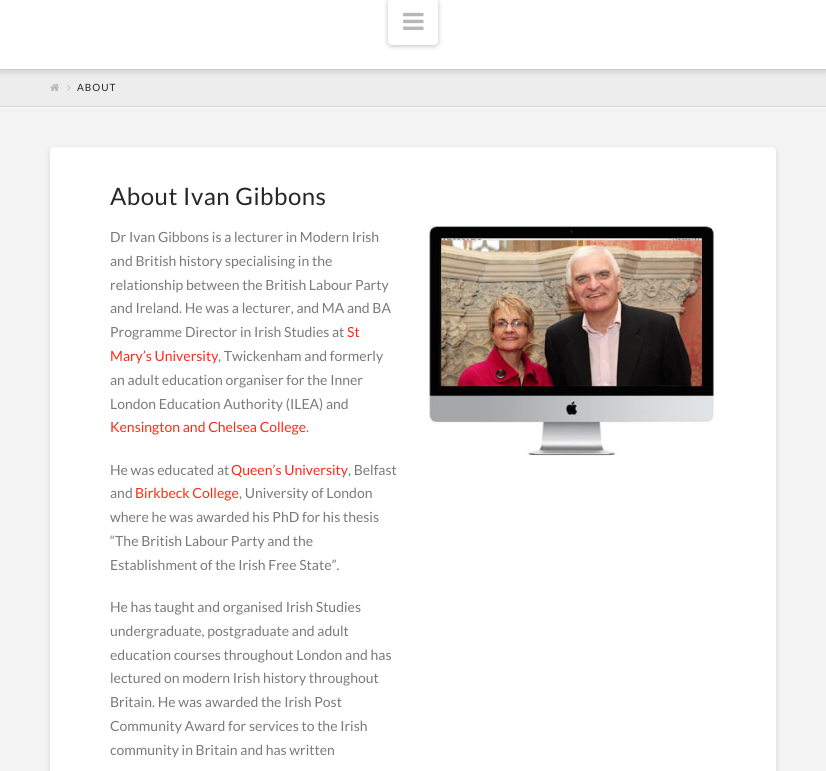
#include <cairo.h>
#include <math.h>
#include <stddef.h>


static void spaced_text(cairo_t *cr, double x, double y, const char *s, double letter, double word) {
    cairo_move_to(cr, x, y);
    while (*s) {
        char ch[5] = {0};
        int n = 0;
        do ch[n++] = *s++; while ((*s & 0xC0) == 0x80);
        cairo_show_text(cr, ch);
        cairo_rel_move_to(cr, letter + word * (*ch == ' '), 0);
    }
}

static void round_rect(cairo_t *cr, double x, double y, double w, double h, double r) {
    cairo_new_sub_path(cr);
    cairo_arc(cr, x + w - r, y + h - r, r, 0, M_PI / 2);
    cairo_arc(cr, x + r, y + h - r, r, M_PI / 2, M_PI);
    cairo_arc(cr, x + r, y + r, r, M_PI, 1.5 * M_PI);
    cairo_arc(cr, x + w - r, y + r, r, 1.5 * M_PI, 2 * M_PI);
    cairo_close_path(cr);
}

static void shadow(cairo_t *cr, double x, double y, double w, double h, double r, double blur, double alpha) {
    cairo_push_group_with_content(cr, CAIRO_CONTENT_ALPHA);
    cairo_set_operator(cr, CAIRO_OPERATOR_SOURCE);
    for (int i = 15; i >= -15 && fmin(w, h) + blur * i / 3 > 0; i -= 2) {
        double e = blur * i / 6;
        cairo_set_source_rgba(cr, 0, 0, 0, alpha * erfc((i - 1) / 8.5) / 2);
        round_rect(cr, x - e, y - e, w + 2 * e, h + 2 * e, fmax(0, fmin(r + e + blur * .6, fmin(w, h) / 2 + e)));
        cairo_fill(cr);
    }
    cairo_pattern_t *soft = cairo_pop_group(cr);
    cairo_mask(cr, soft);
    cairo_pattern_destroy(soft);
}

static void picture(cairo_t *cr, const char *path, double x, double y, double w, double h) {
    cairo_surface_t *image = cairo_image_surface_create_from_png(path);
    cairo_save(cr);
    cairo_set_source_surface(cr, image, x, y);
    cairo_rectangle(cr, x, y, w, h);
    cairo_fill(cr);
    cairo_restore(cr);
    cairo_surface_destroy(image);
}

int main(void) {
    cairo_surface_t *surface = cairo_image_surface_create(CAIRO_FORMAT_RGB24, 826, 771);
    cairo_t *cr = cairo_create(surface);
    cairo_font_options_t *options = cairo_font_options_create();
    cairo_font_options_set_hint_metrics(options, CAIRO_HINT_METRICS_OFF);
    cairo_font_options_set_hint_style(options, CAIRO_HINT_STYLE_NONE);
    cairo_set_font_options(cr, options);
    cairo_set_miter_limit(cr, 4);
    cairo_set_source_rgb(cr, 0.953, 0.953, 0.953);
    cairo_paint(cr);
    cairo_set_source_rgb(cr, 0.929, 0.929, 0.929);
    cairo_rectangle(cr, 0, 70, 826, 36);
    cairo_fill(cr);
    cairo_set_source_rgb(cr, 0, 0, 0);
    shadow(cr, 0, -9, 826, 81, 0, 3, 0.13);
    cairo_set_source_rgb(cr, 1, 1, 1);
    cairo_rectangle(cr, 0, 0, 826, 69);
    cairo_fill(cr);
    cairo_set_source_rgb(cr, 0.8, 0.8, 0.8);
    cairo_rectangle(cr, 0, 69, 826, 1);
    cairo_fill(cr);
    cairo_set_source_rgb(cr, 0, 0, 0);
    shadow(cr, 388, 0, 50, 46, 4, 2.5, 0.25);
    cairo_set_source_rgb(cr, 1, 1, 1);
    round_rect(cr, 388, -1, 50, 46, 4);
    cairo_fill(cr);
    picture(cr, "img1.png", 403, 12, 21, 18);
    cairo_set_source_rgb(cr, 0.988, 0.988, 0.988);
    cairo_rectangle(cr, 0, 107, 826, 1);
    cairo_fill(cr);
    cairo_set_source_rgb(cr, 0.835, 0.835, 0.835);
    cairo_rectangle(cr, 0, 106, 826, 1);
    cairo_fill(cr);
    picture(cr, "img2.png", 50, 83, 9, 8);
    picture(cr, "img3.png", 67, 85, 4, 6);
    cairo_select_font_face(cr, "Lato", CAIRO_FONT_SLANT_NORMAL, CAIRO_FONT_WEIGHT_NORMAL);
    cairo_set_font_size(cr, 10);
    cairo_set_source_rgb(cr, 0.153, 0.153, 0.153);
    spaced_text(cr, 77, 91, "ABOUT", 1, 0);
    cairo_set_source_rgb(cr, 0, 0, 0);
    shadow(cr, 50, 149, 726, 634, 4, 2.5, 0.13);
    cairo_set_source_rgb(cr, 1, 1, 1);
    round_rect(cr, 50, 147, 726, 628, 4);
    cairo_fill(cr);
    cairo_set_font_size(cr, 24);
    cairo_set_source_rgb(cr, 0.153, 0.153, 0.153);
    spaced_text(cr, 110, 205, "About Ivan Gibbons", 0.5, 0);
    cairo_set_font_size(cr, 14);
    cairo_set_source_rgb(cr, 0.478, 0.478, 0.478);
    cairo_move_to(cr, 110, 242);
    cairo_show_text(cr, "Dr Ivan Gibbons is a lecturer in Modern Irish");
    cairo_move_to(cr, 110, 266);
    cairo_show_text(cr, "and British history specialising in the");
    cairo_move_to(cr, 110, 290);
    cairo_show_text(cr, "relationship between the British Labour Party");
    cairo_move_to(cr, 110, 313);
    cairo_show_text(cr, "and Ireland. He was a lecturer, and MA and BA");
    cairo_move_to(cr, 110, 337);
    cairo_show_text(cr, "Programme Director in Irish Studies at");
    cairo_set_source_rgb(cr, 1, 0.165, 0.075);
    cairo_move_to(cr, 347, 337);
    cairo_show_text(cr, "St");
    cairo_move_to(cr, 110, 361);
    cairo_show_text(cr, "Mary’s University");
    cairo_set_source_rgb(cr, 0.478, 0.478, 0.478);
    cairo_move_to(cr, 218, 361);
    cairo_show_text(cr, ", Twickenham and formerly");
    cairo_move_to(cr, 110, 385);
    cairo_show_text(cr, "an adult education organiser for the Inner");
    cairo_move_to(cr, 110, 409);
    cairo_show_text(cr, "London Education Authority (ILEA) and");
    cairo_set_source_rgb(cr, 1, 0.165, 0.075);
    cairo_move_to(cr, 110, 432);
    cairo_show_text(cr, "Kensington and Chelsea College");
    cairo_set_source_rgb(cr, 0.478, 0.478, 0.478);
    cairo_move_to(cr, 306, 432);
    cairo_show_text(cr, ".");
    cairo_move_to(cr, 110, 475);
    cairo_show_text(cr, "He was educated at");
    cairo_set_source_rgb(cr, 1, 0.165, 0.075);
    cairo_move_to(cr, 231, 475);
    cairo_show_text(cr, "Queen’s University");
    cairo_set_source_rgb(cr, 0.478, 0.478, 0.478);
    cairo_move_to(cr, 348, 475);
    cairo_show_text(cr, ", Belfast");
    cairo_move_to(cr, 110, 498);
    cairo_show_text(cr, "and");
    cairo_set_source_rgb(cr, 1, 0.165, 0.075);
    cairo_move_to(cr, 135, 498);
    cairo_show_text(cr, "Birkbeck College");
    cairo_set_source_rgb(cr, 0.478, 0.478, 0.478);
    cairo_move_to(cr, 239, 498);
    cairo_show_text(cr, ", University of London");
    cairo_move_to(cr, 110, 522);
    cairo_show_text(cr, "where he was awarded his PhD for his thesis");
    cairo_move_to(cr, 110, 546);
    cairo_show_text(cr, "“The British Labour Party and the");
    cairo_move_to(cr, 110, 570);
    cairo_show_text(cr, "Establishment of the Irish Free State”.");
    cairo_move_to(cr, 110, 612);
    cairo_show_text(cr, "He has taught and organised Irish Studies");
    cairo_move_to(cr, 110, 636);
    cairo_show_text(cr, "undergraduate, postgraduate and adult");
    cairo_move_to(cr, 110, 660);
    cairo_show_text(cr, "education courses throughout London and has");
    cairo_move_to(cr, 110, 683);
    cairo_show_text(cr, "lectured on modern Irish history throughout");
    cairo_move_to(cr, 110, 707);
    cairo_show_text(cr, "Britain. He was awarded the Irish Post");
    cairo_move_to(cr, 110, 731);
    cairo_show_text(cr, "Community Award for services to the Irish");
    cairo_move_to(cr, 110, 755);
    cairo_show_text(cr, "community in Britain and has written");
    picture(cr, "img4.png", 427, 225, 289, 231);
    cairo_surface_write_to_png(surface, "page.png");
    cairo_font_options_destroy(options);
    cairo_destroy(cr);
    cairo_surface_destroy(surface);
    return 0;
}
